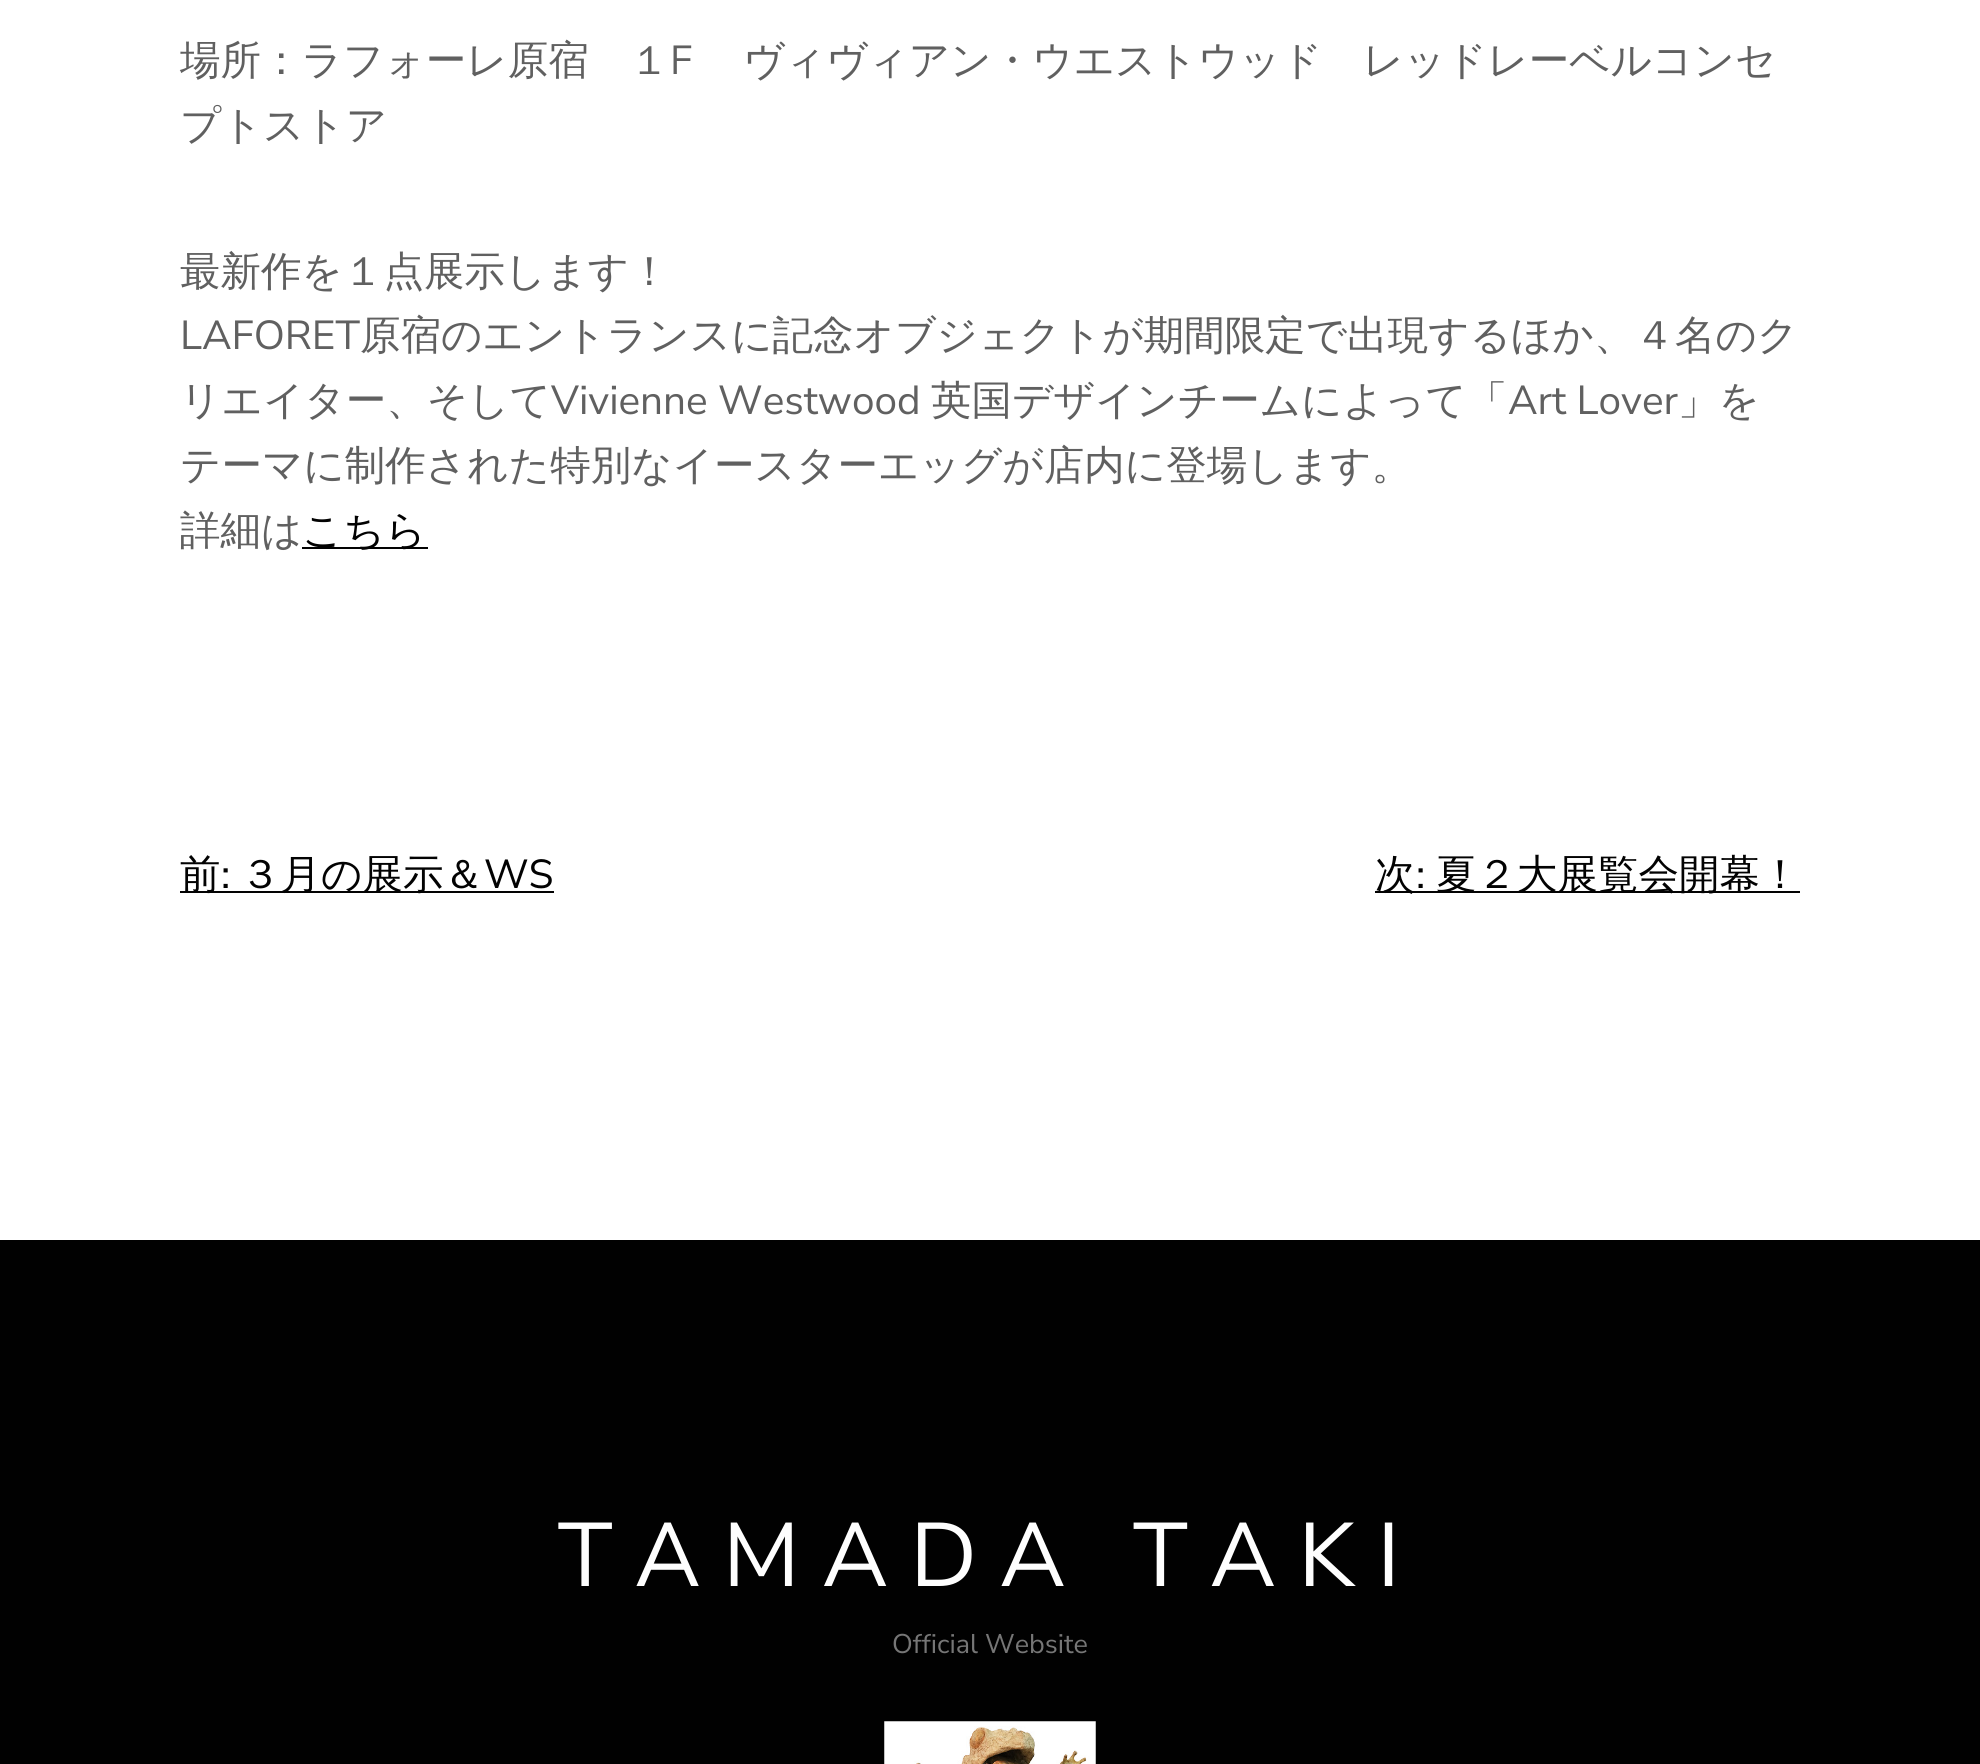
#include <cairo.h>
#include <math.h>
#include <stddef.h>


static void spaced_text(cairo_t *cr, double x, double y, const char *s, double letter, double word) {
    cairo_move_to(cr, x, y);
    while (*s) {
        char ch[5] = {0};
        int n = 0;
        do ch[n++] = *s++; while ((*s & 0xC0) == 0x80);
        cairo_show_text(cr, ch);
        cairo_rel_move_to(cr, letter + word * (*ch == ' '), 0);
    }
}

static void picture(cairo_t *cr, const char *path, double x, double y, double w, double h) {
    cairo_surface_t *image = cairo_image_surface_create_from_png(path);
    cairo_save(cr);
    cairo_set_source_surface(cr, image, x, y);
    cairo_rectangle(cr, x, y, w, h);
    cairo_fill(cr);
    cairo_restore(cr);
    cairo_surface_destroy(image);
}

int main(void) {
    cairo_surface_t *surface = cairo_image_surface_create(CAIRO_FORMAT_RGB24, 1980, 1764);
    cairo_t *cr = cairo_create(surface);
    cairo_font_options_t *options = cairo_font_options_create();
    cairo_font_options_set_hint_metrics(options, CAIRO_HINT_METRICS_OFF);
    cairo_font_options_set_hint_style(options, CAIRO_HINT_STYLE_NONE);
    cairo_set_font_options(cr, options);
    cairo_set_miter_limit(cr, 4);
    cairo_set_source_rgb(cr, 1, 1, 1);
    cairo_paint(cr);
    cairo_select_font_face(cr, "WenQuanYi Zen Hei Medium", CAIRO_FONT_SLANT_NORMAL, CAIRO_FONT_WEIGHT_NORMAL);
    cairo_set_font_size(cr, 40.5);
    cairo_set_source_rgb(cr, 0.376, 0.376, 0.376);
    cairo_move_to(cr, 180, 74);
    cairo_show_text(cr, "場所：ラフォーレ原宿　１");
    cairo_select_font_face(cr, "Nunito Sans", CAIRO_FONT_SLANT_NORMAL, CAIRO_FONT_WEIGHT_NORMAL);
    cairo_move_to(cr, 670, 74);
    cairo_show_text(cr, "F");
    cairo_select_font_face(cr, "WenQuanYi Zen Hei Medium", CAIRO_FONT_SLANT_NORMAL, CAIRO_FONT_WEIGHT_NORMAL);
    cairo_move_to(cr, 743, 74);
    cairo_show_text(cr, "ヴィヴィアン・ウエストウッド　レッドレーベルコンセ");
    cairo_move_to(cr, 180, 139);
    cairo_show_text(cr, "プトストア");
    cairo_move_to(cr, 180, 285);
    cairo_show_text(cr, "最新作を１点展示します！");
    cairo_select_font_face(cr, "Nunito Sans", CAIRO_FONT_SLANT_NORMAL, CAIRO_FONT_WEIGHT_NORMAL);
    cairo_move_to(cr, 180, 349);
    cairo_show_text(cr, "LAFORET");
    cairo_select_font_face(cr, "WenQuanYi Zen Hei Medium", CAIRO_FONT_SLANT_NORMAL, CAIRO_FONT_WEIGHT_NORMAL);
    cairo_move_to(cr, 360, 349);
    cairo_show_text(cr, "原宿のエントランスに記念オブジェクトが期間限定で出現するほか、４名のク");
    cairo_move_to(cr, 180, 414);
    cairo_show_text(cr, "リエイター、そして");
    cairo_select_font_face(cr, "Nunito Sans", CAIRO_FONT_SLANT_NORMAL, CAIRO_FONT_WEIGHT_NORMAL);
    cairo_move_to(cr, 551, 414);
    cairo_show_text(cr, "Vivienne Westwood");
    cairo_select_font_face(cr, "WenQuanYi Zen Hei Medium", CAIRO_FONT_SLANT_NORMAL, CAIRO_FONT_WEIGHT_NORMAL);
    cairo_move_to(cr, 931, 414);
    cairo_show_text(cr, "英国デザインチームによって「");
    cairo_select_font_face(cr, "Nunito Sans", CAIRO_FONT_SLANT_NORMAL, CAIRO_FONT_WEIGHT_NORMAL);
    cairo_move_to(cr, 1508, 414);
    cairo_show_text(cr, "Art Lover");
    cairo_select_font_face(cr, "WenQuanYi Zen Hei Medium", CAIRO_FONT_SLANT_NORMAL, CAIRO_FONT_WEIGHT_NORMAL);
    cairo_move_to(cr, 1678, 414);
    cairo_show_text(cr, "」を");
    cairo_move_to(cr, 180, 479);
    cairo_show_text(cr, "テーマに制作された特別なイースターエッグが店内に登場します。");
    cairo_move_to(cr, 180, 544);
    cairo_show_text(cr, "詳細は");
    cairo_set_source_rgb(cr, 0.008, 0.008, 0.008);
    cairo_rectangle(cr, 302, 547, 126, 2);
    cairo_fill(cr);
    cairo_move_to(cr, 302, 544);
    cairo_show_text(cr, "こちら");
    cairo_rectangle(cr, 180, 891, 374, 2);
    cairo_fill(cr);
    cairo_move_to(cr, 180, 888);
    cairo_show_text(cr, "前");
    cairo_select_font_face(cr, "Nunito Sans", CAIRO_FONT_SLANT_NORMAL, CAIRO_FONT_WEIGHT_NORMAL);
    cairo_move_to(cr, 221, 888);
    cairo_show_text(cr, ":");
    cairo_select_font_face(cr, "WenQuanYi Zen Hei Medium", CAIRO_FONT_SLANT_NORMAL, CAIRO_FONT_WEIGHT_NORMAL);
    cairo_move_to(cr, 240, 888);
    cairo_show_text(cr, "３月の展示＆");
    cairo_select_font_face(cr, "Nunito Sans", CAIRO_FONT_SLANT_NORMAL, CAIRO_FONT_WEIGHT_NORMAL);
    cairo_move_to(cr, 484, 888);
    cairo_show_text(cr, "WS");
    cairo_rectangle(cr, 1375, 891, 425, 2);
    cairo_fill(cr);
    cairo_select_font_face(cr, "WenQuanYi Zen Hei Medium", CAIRO_FONT_SLANT_NORMAL, CAIRO_FONT_WEIGHT_NORMAL);
    cairo_move_to(cr, 1375, 888);
    cairo_show_text(cr, "次");
    cairo_select_font_face(cr, "Nunito Sans", CAIRO_FONT_SLANT_NORMAL, CAIRO_FONT_WEIGHT_NORMAL);
    cairo_move_to(cr, 1416, 888);
    cairo_show_text(cr, ":");
    cairo_select_font_face(cr, "WenQuanYi Zen Hei Medium", CAIRO_FONT_SLANT_NORMAL, CAIRO_FONT_WEIGHT_NORMAL);
    cairo_move_to(cr, 1436, 888);
    cairo_show_text(cr, "夏２大展覧会開幕！");
    cairo_set_source_rgb(cr, 0.004, 0.004, 0.004);
    cairo_rectangle(cr, 0, 1240, 1980, 524);
    cairo_fill(cr);
    cairo_select_font_face(cr, "Nunito Sans", CAIRO_FONT_SLANT_NORMAL, CAIRO_FONT_WEIGHT_NORMAL);
    cairo_set_font_size(cr, 90);
    cairo_set_source_rgb(cr, 0.996, 0.996, 0.996);
    spaced_text(cr, 558, 1586, "TAMADA TAKI", 22.5, 0);
    cairo_set_font_size(cr, 27);
    cairo_set_source_rgb(cr, 0.463, 0.463, 0.463);
    cairo_move_to(cr, 892, 1653);
    cairo_show_text(cr, "Official Website");
    picture(cr, "img1.png", 884, 1721, 212, 43);
    cairo_surface_write_to_png(surface, "page.png");
    cairo_font_options_destroy(options);
    cairo_destroy(cr);
    cairo_surface_destroy(surface);
    return 0;
}
